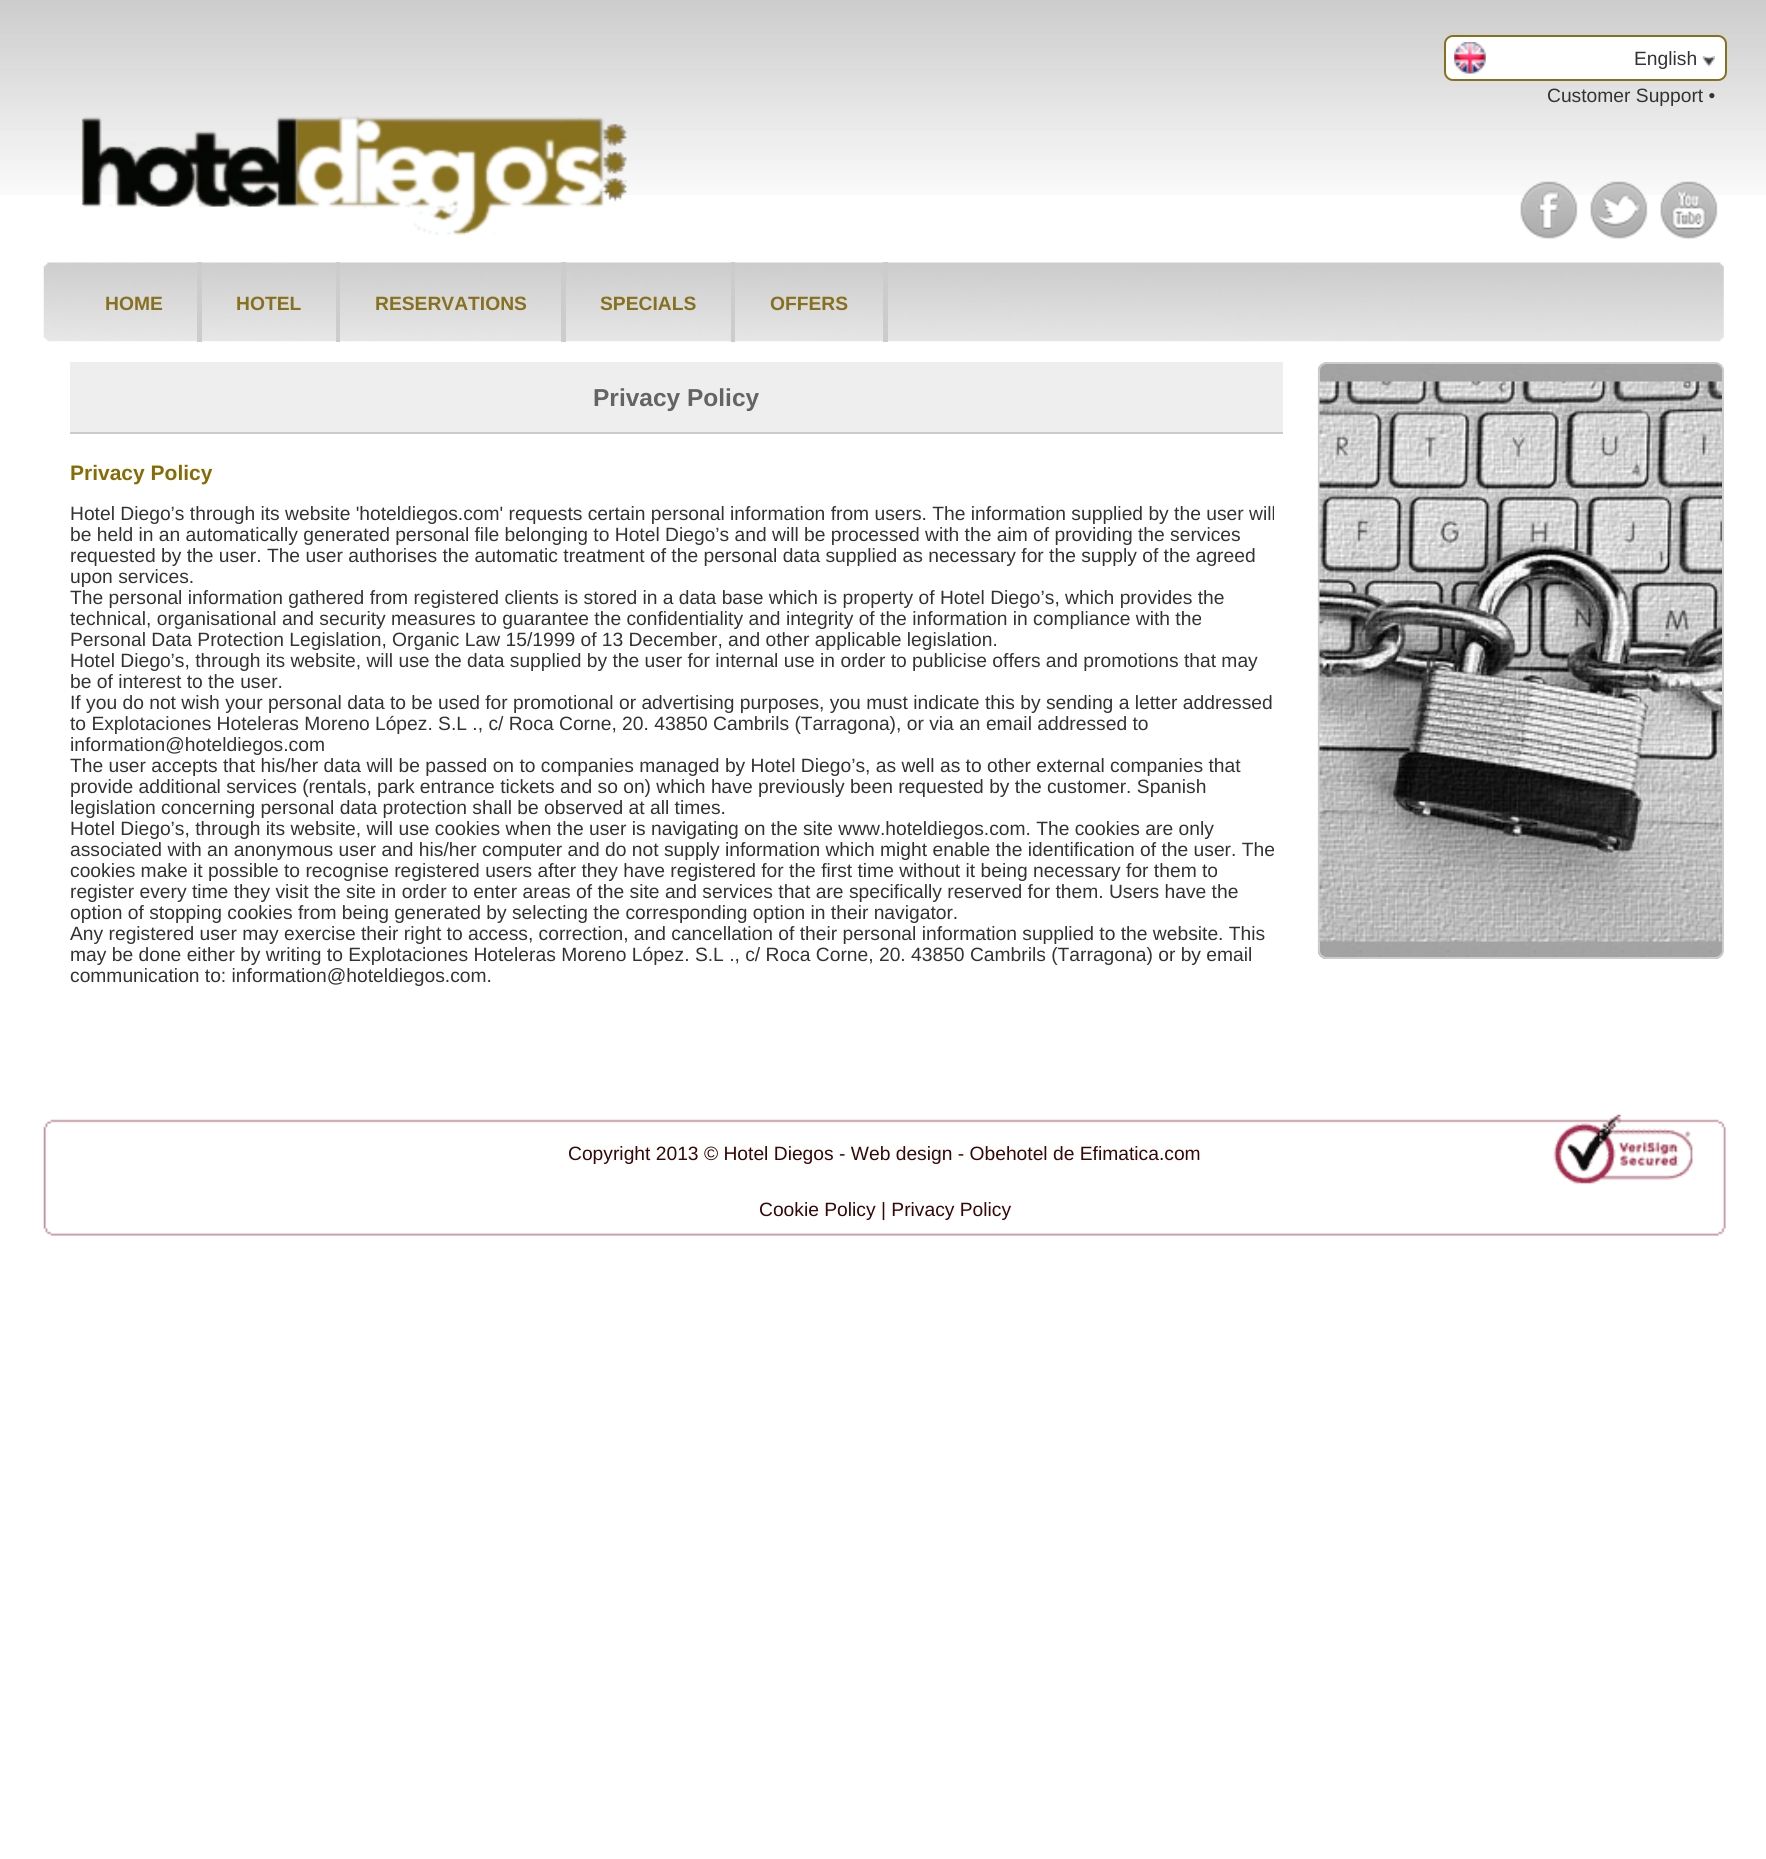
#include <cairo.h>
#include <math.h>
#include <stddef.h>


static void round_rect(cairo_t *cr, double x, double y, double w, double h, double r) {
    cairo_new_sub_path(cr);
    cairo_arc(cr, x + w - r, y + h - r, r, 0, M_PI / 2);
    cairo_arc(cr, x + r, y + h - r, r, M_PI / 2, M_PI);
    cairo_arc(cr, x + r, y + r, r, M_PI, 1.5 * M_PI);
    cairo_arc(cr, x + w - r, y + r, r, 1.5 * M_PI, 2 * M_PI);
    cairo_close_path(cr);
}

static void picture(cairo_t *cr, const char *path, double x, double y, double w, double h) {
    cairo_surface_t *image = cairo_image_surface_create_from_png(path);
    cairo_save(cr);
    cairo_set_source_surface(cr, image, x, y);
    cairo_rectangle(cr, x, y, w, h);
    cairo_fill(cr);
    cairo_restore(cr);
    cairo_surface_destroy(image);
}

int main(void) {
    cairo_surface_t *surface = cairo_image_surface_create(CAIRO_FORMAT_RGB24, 1766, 1859);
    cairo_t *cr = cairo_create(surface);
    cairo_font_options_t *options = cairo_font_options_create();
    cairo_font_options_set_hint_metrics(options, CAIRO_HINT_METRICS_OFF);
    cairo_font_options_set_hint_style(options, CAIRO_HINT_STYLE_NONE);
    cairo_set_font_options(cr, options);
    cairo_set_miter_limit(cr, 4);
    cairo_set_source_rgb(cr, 1, 1, 1);
    cairo_paint(cr);
    picture(cr, "img1.png", 0, 0, 1766, 195);
    cairo_set_source_rgb(cr, 1, 1, 1);
    round_rect(cr, 1445, 36, 281, 44, 8);
    cairo_fill_preserve(cr);
    cairo_set_source_rgb(cr, 0.529, 0.443, 0.118);
    cairo_stroke(cr);
    picture(cr, "img2.png", 1454, 42, 32, 32);
    cairo_select_font_face(cr, "Liberation Sans", CAIRO_FONT_SLANT_NORMAL, CAIRO_FONT_WEIGHT_NORMAL);
    cairo_set_font_size(cr, 19.25);
    cairo_set_source_rgb(cr, 0.2, 0.2, 0.2);
    cairo_move_to(cr, 1634, 65);
    cairo_show_text(cr, "English");
    picture(cr, "img3.png", 1702, 56, 13, 11);
    cairo_move_to(cr, 1547, 102);
    cairo_show_text(cr, "Customer Support •");
    picture(cr, "img4.png", 81, 115, 546, 120);
    picture(cr, "img5.png", 1520, 181, 58, 59);
    picture(cr, "img6.png", 1590, 181, 58, 59);
    picture(cr, "img7.png", 1660, 181, 58, 59);
    picture(cr, "img8.png", 43, 262, 1681, 80);
    cairo_select_font_face(cr, "Liberation Sans", CAIRO_FONT_SLANT_NORMAL, CAIRO_FONT_WEIGHT_BOLD);
    cairo_set_source_rgb(cr, 0.529, 0.443, 0.118);
    cairo_move_to(cr, 105, 310);
    cairo_show_text(cr, "HOME");
    cairo_set_source_rgb(cr, 0.8, 0.8, 0.8);
    cairo_rectangle(cr, 197, 262, 5, 80);
    cairo_fill(cr);
    cairo_set_source_rgb(cr, 0.529, 0.443, 0.118);
    cairo_move_to(cr, 236, 310);
    cairo_show_text(cr, "HOTEL");
    cairo_set_source_rgb(cr, 0.8, 0.8, 0.8);
    cairo_rectangle(cr, 336, 262, 4, 80);
    cairo_fill(cr);
    cairo_set_source_rgb(cr, 0.529, 0.443, 0.118);
    cairo_move_to(cr, 375, 310);
    cairo_show_text(cr, "RESERVATIONS");
    cairo_set_source_rgb(cr, 0.8, 0.8, 0.8);
    cairo_rectangle(cr, 561, 262, 5, 80);
    cairo_fill(cr);
    cairo_set_source_rgb(cr, 0.529, 0.443, 0.118);
    cairo_move_to(cr, 600, 310);
    cairo_show_text(cr, "SPECIALS");
    cairo_set_source_rgb(cr, 0.8, 0.8, 0.8);
    cairo_rectangle(cr, 731, 262, 4, 80);
    cairo_fill(cr);
    cairo_set_source_rgb(cr, 0.529, 0.443, 0.118);
    cairo_move_to(cr, 770, 310);
    cairo_show_text(cr, "OFFERS");
    cairo_set_source_rgb(cr, 0.8, 0.8, 0.8);
    cairo_rectangle(cr, 883, 262, 5, 80);
    cairo_fill(cr);
    cairo_set_source_rgb(cr, 0.933, 0.933, 0.933);
    cairo_rectangle(cr, 70, 362, 1213, 70);
    cairo_fill(cr);
    cairo_set_source_rgb(cr, 0.8, 0.8, 0.8);
    cairo_rectangle(cr, 70, 432, 1213, 2);
    cairo_fill(cr);
    cairo_set_font_size(cr, 24.5);
    cairo_set_source_rgb(cr, 0.392, 0.392, 0.392);
    cairo_move_to(cr, 593, 406);
    cairo_show_text(cr, "Privacy Policy");
    cairo_set_font_size(cr, 21);
    cairo_set_source_rgb(cr, 0.529, 0.424, 0.024);
    cairo_move_to(cr, 70, 480);
    cairo_show_text(cr, "Privacy Policy");
    cairo_select_font_face(cr, "Liberation Sans", CAIRO_FONT_SLANT_NORMAL, CAIRO_FONT_WEIGHT_NORMAL);
    cairo_set_font_size(cr, 19.25);
    cairo_set_source_rgb(cr, 0.2, 0.2, 0.2);
    cairo_move_to(cr, 70, 520);
    cairo_show_text(cr, "Hotel Diego’s through its website 'hoteldiegos.com' requests certain personal information from users. The information supplied by the user will");
    cairo_move_to(cr, 70, 541);
    cairo_show_text(cr, "be held in an automatically generated personal file belonging to Hotel Diego’s and will be processed with the aim of providing the services");
    cairo_move_to(cr, 70, 562);
    cairo_show_text(cr, "requested by the user. The user authorises the automatic treatment of the personal data supplied as necessary for the supply of the agreed");
    cairo_move_to(cr, 70, 583);
    cairo_show_text(cr, "upon services.");
    cairo_move_to(cr, 70, 604);
    cairo_show_text(cr, "The personal information gathered from registered clients is stored in a data base which is property of Hotel Diego’s, which provides the");
    cairo_move_to(cr, 70, 625);
    cairo_show_text(cr, "technical, organisational and security measures to guarantee the confidentiality and integrity of the information in compliance with the");
    cairo_move_to(cr, 70, 646);
    cairo_show_text(cr, "Personal Data Protection Legislation, Organic Law 15/1999 of 13 December, and other applicable legislation.");
    cairo_move_to(cr, 70, 667);
    cairo_show_text(cr, "Hotel Diego’s, through its website, will use the data supplied by the user for internal use in order to publicise offers and promotions that may");
    cairo_move_to(cr, 70, 688);
    cairo_show_text(cr, "be of interest to the user.");
    cairo_move_to(cr, 70, 709);
    cairo_show_text(cr, "If you do not wish your personal data to be used for promotional or advertising purposes, you must indicate this by sending a letter addressed");
    cairo_move_to(cr, 70, 730);
    cairo_show_text(cr, "to Explotaciones Hoteleras Moreno López. S.L ., c/ Roca Corne, 20. 43850 Cambrils (Tarragona), or via an email addressed to");
    cairo_move_to(cr, 70, 751);
    cairo_show_text(cr, "information@hoteldiegos.com");
    cairo_move_to(cr, 70, 772);
    cairo_show_text(cr, "The user accepts that his/her data will be passed on to companies managed by Hotel Diego’s, as well as to other external companies that");
    cairo_move_to(cr, 70, 793);
    cairo_show_text(cr, "provide additional services (rentals, park entrance tickets and so on) which have previously been requested by the customer. Spanish");
    cairo_move_to(cr, 70, 814);
    cairo_show_text(cr, "legislation concerning personal data protection shall be observed at all times.");
    cairo_move_to(cr, 70, 835);
    cairo_show_text(cr, "Hotel Diego’s, through its website, will use cookies when the user is navigating on the site www.hoteldiegos.com. The cookies are only");
    cairo_move_to(cr, 70, 856);
    cairo_show_text(cr, "associated with an anonymous user and his/her computer and do not supply information which might enable the identification of the user. The");
    cairo_move_to(cr, 70, 877);
    cairo_show_text(cr, "cookies make it possible to recognise registered users after they have registered for the first time without it being necessary for them to");
    cairo_move_to(cr, 70, 898);
    cairo_show_text(cr, "register every time they visit the site in order to enter areas of the site and services that are specifically reserved for them. Users have the");
    cairo_move_to(cr, 70, 919);
    cairo_show_text(cr, "option of stopping cookies from being generated by selecting the corresponding option in their navigator.");
    cairo_move_to(cr, 70, 940);
    cairo_show_text(cr, "Any registered user may exercise their right to access, correction, and cancellation of their personal information supplied to the website. This");
    cairo_move_to(cr, 70, 961);
    cairo_show_text(cr, "may be done either by writing to Explotaciones Hoteleras Moreno López. S.L ., c/ Roca Corne, 20. 43850 Cambrils (Tarragona) or by email");
    cairo_move_to(cr, 70, 982);
    cairo_show_text(cr, "communication to: information@hoteldiegos.com.");
    picture(cr, "img9.png", 1317, 362, 407, 597);
    round_rect(cr, 1319, 363, 404, 595, 8);
    cairo_set_source_rgb(cr, 0.8, 0.8, 0.8);
    cairo_stroke(cr);
    picture(cr, "img10.png", 1319, 381, 403, 561);
    picture(cr, "img11.png", 43, 1114, 1683, 122);
    cairo_set_source_rgb(cr, 0.208, 0.031, 0.02);
    cairo_move_to(cr, 568, 1160);
    cairo_show_text(cr, "Copyright 2013 © Hotel Diegos - Web design - Obehotel de Efimatica.com");
    cairo_move_to(cr, 759, 1216);
    cairo_show_text(cr, "Cookie Policy | Privacy Policy");
    cairo_surface_write_to_png(surface, "page.png");
    cairo_font_options_destroy(options);
    cairo_destroy(cr);
    cairo_surface_destroy(surface);
    return 0;
}
